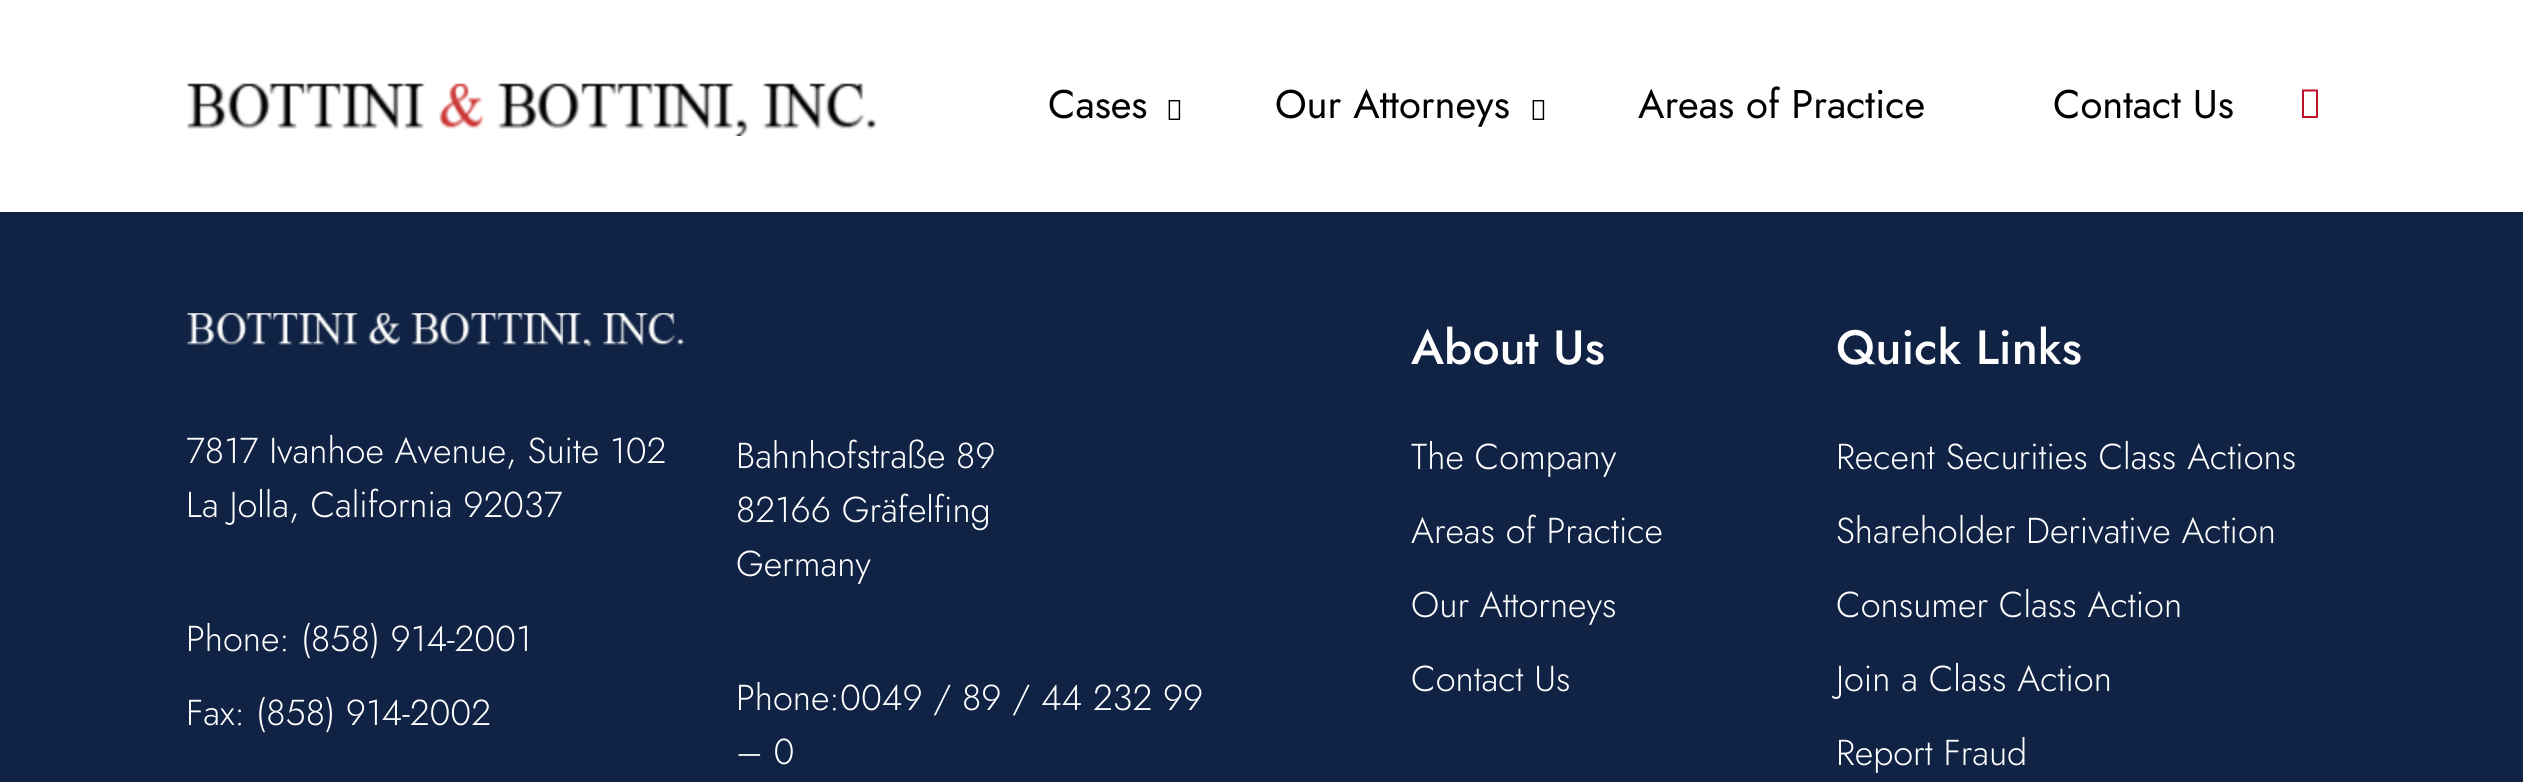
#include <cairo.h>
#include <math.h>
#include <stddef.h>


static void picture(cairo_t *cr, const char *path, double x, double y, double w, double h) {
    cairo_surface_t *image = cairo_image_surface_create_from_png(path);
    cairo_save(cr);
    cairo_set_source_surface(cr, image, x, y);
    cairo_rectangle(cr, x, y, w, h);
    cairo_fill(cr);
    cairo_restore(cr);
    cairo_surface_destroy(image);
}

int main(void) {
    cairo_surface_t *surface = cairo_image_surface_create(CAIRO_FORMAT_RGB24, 2523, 782);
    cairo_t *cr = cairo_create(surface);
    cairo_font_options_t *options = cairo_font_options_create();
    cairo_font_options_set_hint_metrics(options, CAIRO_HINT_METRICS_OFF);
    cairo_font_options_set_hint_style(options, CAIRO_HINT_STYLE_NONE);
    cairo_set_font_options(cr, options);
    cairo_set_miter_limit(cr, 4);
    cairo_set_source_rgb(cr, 0.063, 0.137, 0.267);
    cairo_paint(cr);
    cairo_set_source_rgb(cr, 1, 1, 1);
    cairo_rectangle(cr, 0, 0, 2523, 212);
    cairo_fill(cr);
    picture(cr, "img1.png", 187, 83, 689, 53);
    cairo_select_font_face(cr, "Jost", CAIRO_FONT_SLANT_NORMAL, CAIRO_FONT_WEIGHT_NORMAL);
    cairo_set_font_size(cr, 40);
    cairo_set_source_rgb(cr, 0, 0, 0);
    cairo_move_to(cr, 1048, 118);
    cairo_show_text(cr, "Cases");
    picture(cr, "img2.png", 1168, 100, 13, 20);
    cairo_move_to(cr, 1275, 118);
    cairo_show_text(cr, "Our Attorneys");
    picture(cr, "img2.png", 1532, 100, 13, 20);
    cairo_move_to(cr, 1638, 118);
    cairo_show_text(cr, "Areas of Practice");
    cairo_move_to(cr, 2053, 118);
    cairo_show_text(cr, "Contact Us");
    cairo_set_source_rgb(cr, 0.741, 0.063, 0.169);
    cairo_new_path(cr);
    cairo_move_to(cr, 2302, 118);
    cairo_line_to(cr, 2302, 89.5);
    cairo_line_to(cr, 2318, 89.5);
    cairo_line_to(cr, 2318, 118);
    cairo_close_path(cr);
    cairo_move_to(cr, 2304, 116);
    cairo_line_to(cr, 2316, 116);
    cairo_line_to(cr, 2316, 91.5);
    cairo_line_to(cr, 2304, 91.5);
    cairo_close_path(cr);
    cairo_fill(cr);
    picture(cr, "img3.png", 187, 313, 497, 33);
    cairo_select_font_face(cr, "Jost Light", CAIRO_FONT_SLANT_NORMAL, CAIRO_FONT_WEIGHT_NORMAL);
    cairo_set_font_size(cr, 36);
    cairo_set_source_rgb(cr, 1, 1, 1);
    cairo_move_to(cr, 186, 463);
    cairo_show_text(cr, "7817 Ivanhoe Avenue, Suite 102");
    cairo_move_to(cr, 186, 517);
    cairo_show_text(cr, "La Jolla, California 92037");
    cairo_move_to(cr, 186, 651);
    cairo_show_text(cr, "Phone: (858) 914-2001");
    cairo_move_to(cr, 186, 725);
    cairo_show_text(cr, "Fax: (858) 914-2002");
    cairo_move_to(cr, 736, 468);
    cairo_show_text(cr, "Bahnhofstraße 89");
    cairo_move_to(cr, 736, 522);
    cairo_show_text(cr, "82166 Gräfelfing");
    cairo_move_to(cr, 736, 576);
    cairo_show_text(cr, "Germany");
    cairo_move_to(cr, 736, 710);
    cairo_show_text(cr, "Phone:0049 / 89 / 44 232 99");
    cairo_move_to(cr, 736, 764);
    cairo_show_text(cr, "– 0");
    cairo_select_font_face(cr, "Jost Medium", CAIRO_FONT_SLANT_NORMAL, CAIRO_FONT_WEIGHT_NORMAL);
    cairo_set_font_size(cr, 48);
    cairo_move_to(cr, 1411, 364);
    cairo_show_text(cr, "About Us");
    cairo_select_font_face(cr, "Jost Light", CAIRO_FONT_SLANT_NORMAL, CAIRO_FONT_WEIGHT_NORMAL);
    cairo_set_font_size(cr, 36);
    cairo_move_to(cr, 1411, 469);
    cairo_show_text(cr, "The Company");
    cairo_move_to(cr, 1411, 543);
    cairo_show_text(cr, "Areas of Practice");
    cairo_move_to(cr, 1411, 617);
    cairo_show_text(cr, "Our Attorneys");
    cairo_move_to(cr, 1411, 691);
    cairo_show_text(cr, "Contact Us");
    cairo_select_font_face(cr, "Jost Medium", CAIRO_FONT_SLANT_NORMAL, CAIRO_FONT_WEIGHT_NORMAL);
    cairo_set_font_size(cr, 48);
    cairo_move_to(cr, 1836, 364);
    cairo_show_text(cr, "Quick Links");
    cairo_select_font_face(cr, "Jost Light", CAIRO_FONT_SLANT_NORMAL, CAIRO_FONT_WEIGHT_NORMAL);
    cairo_set_font_size(cr, 36);
    cairo_move_to(cr, 1836, 469);
    cairo_show_text(cr, "Recent Securities Class Actions");
    cairo_move_to(cr, 1836, 543);
    cairo_show_text(cr, "Shareholder Derivative Action");
    cairo_move_to(cr, 1836, 617);
    cairo_show_text(cr, "Consumer Class Action");
    cairo_move_to(cr, 1836, 691);
    cairo_show_text(cr, "Join a Class Action");
    cairo_move_to(cr, 1836, 765);
    cairo_show_text(cr, "Report Fraud");
    cairo_surface_write_to_png(surface, "page.png");
    cairo_font_options_destroy(options);
    cairo_destroy(cr);
    cairo_surface_destroy(surface);
    return 0;
}
